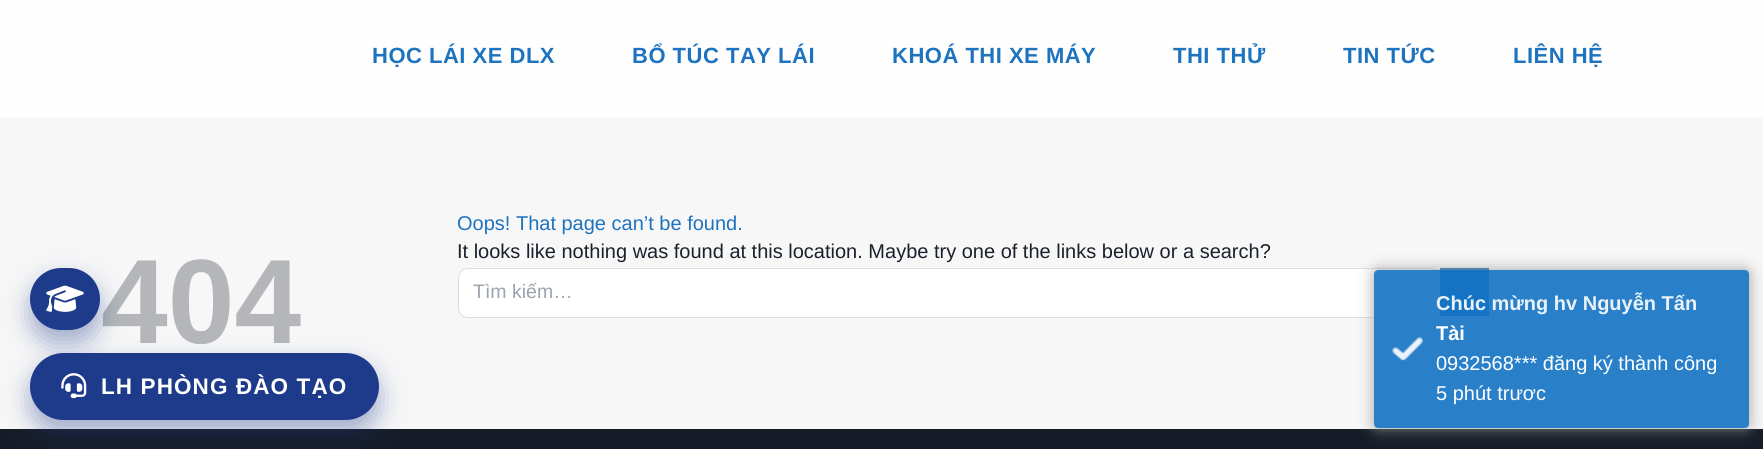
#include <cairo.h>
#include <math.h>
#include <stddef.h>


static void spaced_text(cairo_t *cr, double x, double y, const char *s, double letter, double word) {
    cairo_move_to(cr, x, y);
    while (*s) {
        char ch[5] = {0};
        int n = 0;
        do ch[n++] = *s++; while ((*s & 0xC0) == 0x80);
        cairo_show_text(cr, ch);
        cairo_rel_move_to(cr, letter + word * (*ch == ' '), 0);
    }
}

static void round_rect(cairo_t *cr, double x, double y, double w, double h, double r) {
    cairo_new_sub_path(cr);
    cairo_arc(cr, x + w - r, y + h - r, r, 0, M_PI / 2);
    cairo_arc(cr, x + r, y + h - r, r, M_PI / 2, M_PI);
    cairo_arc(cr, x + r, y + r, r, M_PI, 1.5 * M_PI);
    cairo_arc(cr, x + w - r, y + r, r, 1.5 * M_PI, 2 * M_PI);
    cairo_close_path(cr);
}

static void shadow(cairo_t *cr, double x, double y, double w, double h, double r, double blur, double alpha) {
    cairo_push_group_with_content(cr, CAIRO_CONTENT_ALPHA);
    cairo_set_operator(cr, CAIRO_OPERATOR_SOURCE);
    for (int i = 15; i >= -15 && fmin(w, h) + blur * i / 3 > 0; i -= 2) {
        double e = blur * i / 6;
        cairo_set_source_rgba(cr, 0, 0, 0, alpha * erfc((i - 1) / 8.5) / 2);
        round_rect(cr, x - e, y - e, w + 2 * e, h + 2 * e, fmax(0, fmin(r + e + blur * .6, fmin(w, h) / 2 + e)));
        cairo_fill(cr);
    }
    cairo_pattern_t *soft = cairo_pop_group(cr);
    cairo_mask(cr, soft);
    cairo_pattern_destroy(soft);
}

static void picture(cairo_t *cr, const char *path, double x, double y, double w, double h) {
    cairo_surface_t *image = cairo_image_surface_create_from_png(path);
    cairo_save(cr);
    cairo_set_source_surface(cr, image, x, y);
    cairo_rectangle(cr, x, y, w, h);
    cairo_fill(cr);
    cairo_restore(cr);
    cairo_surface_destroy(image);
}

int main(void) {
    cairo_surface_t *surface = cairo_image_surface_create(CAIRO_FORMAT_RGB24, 1763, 449);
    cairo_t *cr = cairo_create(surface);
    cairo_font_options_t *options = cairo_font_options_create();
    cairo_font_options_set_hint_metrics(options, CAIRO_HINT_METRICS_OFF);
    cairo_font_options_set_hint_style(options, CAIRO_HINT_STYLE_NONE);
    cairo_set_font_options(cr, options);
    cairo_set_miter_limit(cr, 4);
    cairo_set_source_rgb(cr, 0.965, 0.965, 0.965);
    cairo_paint(cr);
    cairo_set_source_rgb(cr, 0.996, 0.996, 0.996);
    cairo_rectangle(cr, 0, 0, 1763, 118);
    cairo_fill(cr);
    cairo_select_font_face(cr, "Liberation Sans", CAIRO_FONT_SLANT_NORMAL, CAIRO_FONT_WEIGHT_BOLD);
    cairo_set_font_size(cr, 22);
    cairo_set_source_rgb(cr, 0.118, 0.451, 0.745);
    spaced_text(cr, 372, 63, "HỌC LÁI XE DLX", 0.5, 0);
    spaced_text(cr, 632, 63, "BỔ TÚC TAY LÁI", 0.5, 0);
    spaced_text(cr, 892, 63, "KHOÁ THI XE MÁY", 0.5, 0);
    spaced_text(cr, 1173, 63, "THI THỬ", 0.5, 0);
    spaced_text(cr, 1343, 63, "TIN TỨC", 0.5, 0);
    spaced_text(cr, 1513, 63, "LIÊN HỆ", 0.5, 0);
    cairo_set_font_size(cr, 120);
    cairo_set_source_rgb(cr, 0.706, 0.714, 0.725);
    cairo_move_to(cr, 101, 343);
    cairo_show_text(cr, "404");
    cairo_select_font_face(cr, "Liberation Sans", CAIRO_FONT_SLANT_NORMAL, CAIRO_FONT_WEIGHT_NORMAL);
    cairo_set_font_size(cr, 20);
    cairo_set_source_rgb(cr, 0.118, 0.451, 0.745);
    cairo_move_to(cr, 457, 230);
    cairo_show_text(cr, "Oops! That page can’t be found.");
    cairo_set_source_rgb(cr, 0.102, 0.125, 0.173);
    cairo_move_to(cr, 457, 258);
    cairo_show_text(cr, "It looks like nothing was found at this location. Maybe try one of the links below or a search?");
    cairo_set_source_rgb(cr, 1, 1, 1);
    round_rect(cr, 458.5, 268.5, 981, 49, 9.5);
    cairo_fill_preserve(cr);
    cairo_set_source_rgb(cr, 0.867, 0.867, 0.867);
    cairo_set_line_width(cr, 1);
    cairo_stroke(cr);
    cairo_set_font_size(cr, 19.5);
    cairo_set_source_rgb(cr, 0.612, 0.639, 0.686);
    cairo_move_to(cr, 473, 298);
    cairo_show_text(cr, "Tìm kiếm…");
    cairo_set_source_rgb(cr, 0.118, 0.451, 0.745);
    cairo_rectangle(cr, 1440.5, 268.5, 48, 47);
    cairo_fill_preserve(cr);
    cairo_set_source_rgb(cr, 0.114, 0.427, 0.71);
    cairo_stroke(cr);
    cairo_set_source_rgb(cr, 0.086, 0.11, 0.153);
    cairo_rectangle(cr, 0, 429, 1763, 20);
    cairo_fill(cr);
    cairo_set_source_rgb(cr, 0.118, 0.227, 0.541);
    shadow(cr, 30, 365, 349, 68, 34, 12.5, 0.4);
    cairo_set_source_rgb(cr, 0.118, 0.227, 0.541);
    round_rect(cr, 30, 353, 349, 67, 33.5);
    cairo_fill(cr);
    picture(cr, "img2.png", 61, 373, 26, 26);
    cairo_set_source_rgb(cr, 0.118, 0.227, 0.541);
    shadow(cr, 30, 280, 70, 63, 31.5, 12.5, 0.4);
    cairo_set_source_rgb(cr, 0.118, 0.227, 0.541);
    round_rect(cr, 30, 268, 70, 62, 31);
    cairo_fill(cr);
    picture(cr, "img1.png", 46, 285, 38, 27);
    cairo_select_font_face(cr, "Liberation Sans", CAIRO_FONT_SLANT_NORMAL, CAIRO_FONT_WEIGHT_BOLD);
    cairo_set_font_size(cr, 22.5);
    cairo_set_source_rgb(cr, 1, 1, 1);
    spaced_text(cr, 101, 394, "LH PHÒNG ĐÀO TẠO", 1.1, 0);
    cairo_save(cr);
    cairo_set_fill_rule(cr, CAIRO_FILL_RULE_EVEN_ODD);
    cairo_new_path(cr);
    cairo_move_to(cr, 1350, 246);
    cairo_line_to(cr, 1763, 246);
    cairo_line_to(cr, 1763, 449);
    cairo_line_to(cr, 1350, 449);
    cairo_close_path(cr);
    cairo_move_to(cr, 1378, 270);
    cairo_line_to(cr, 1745, 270);
    cairo_curve_to(cr, 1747, 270, 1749, 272, 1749, 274);
    cairo_line_to(cr, 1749, 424);
    cairo_curve_to(cr, 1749, 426, 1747, 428, 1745, 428);
    cairo_line_to(cr, 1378, 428);
    cairo_curve_to(cr, 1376, 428, 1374, 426, 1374, 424);
    cairo_line_to(cr, 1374, 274);
    cairo_curve_to(cr, 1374, 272, 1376, 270, 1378, 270);
    cairo_close_path(cr);
    cairo_clip(cr);
    cairo_set_source_rgb(cr, 0.6, 0.6, 0.6);
    shadow(cr, 1374, 270, 375, 158, 4, 7.5, 0.9);
    cairo_restore(cr);
    cairo_set_source_rgba(cr, 0.075, 0.455, 0.765, 0.9);
    round_rect(cr, 1374, 270, 375, 158, 4);
    cairo_fill(cr);
    picture(cr, "img3.png", 1391, 337, 32, 24);
    cairo_set_font_size(cr, 20);
    cairo_set_source_rgb(cr, 0.914, 0.949, 0.976);
    cairo_move_to(cr, 1436, 310);
    cairo_show_text(cr, "Chúc mừng hv Nguyễn Tấn");
    cairo_set_source_rgb(cr, 1, 1, 1);
    cairo_move_to(cr, 1436, 340);
    cairo_show_text(cr, "Tài");
    cairo_select_font_face(cr, "Liberation Sans", CAIRO_FONT_SLANT_NORMAL, CAIRO_FONT_WEIGHT_NORMAL);
    cairo_move_to(cr, 1436, 370);
    cairo_show_text(cr, "0932568*** đăng ký thành công");
    cairo_move_to(cr, 1436, 400);
    cairo_show_text(cr, "5 phút trươc");
    cairo_surface_write_to_png(surface, "page.png");
    cairo_font_options_destroy(options);
    cairo_destroy(cr);
    cairo_surface_destroy(surface);
    return 0;
}
